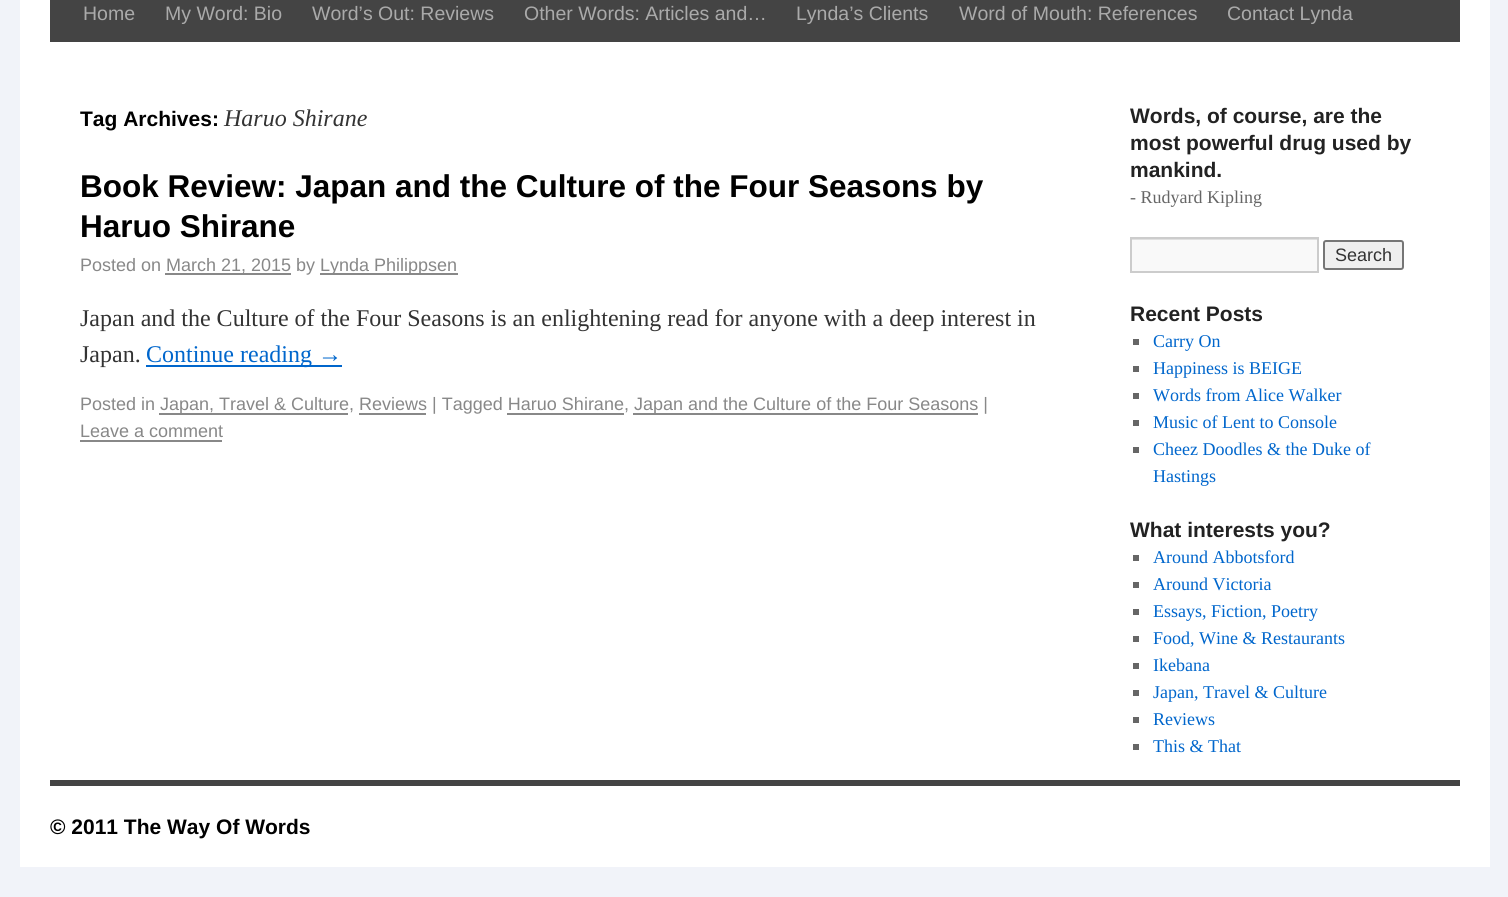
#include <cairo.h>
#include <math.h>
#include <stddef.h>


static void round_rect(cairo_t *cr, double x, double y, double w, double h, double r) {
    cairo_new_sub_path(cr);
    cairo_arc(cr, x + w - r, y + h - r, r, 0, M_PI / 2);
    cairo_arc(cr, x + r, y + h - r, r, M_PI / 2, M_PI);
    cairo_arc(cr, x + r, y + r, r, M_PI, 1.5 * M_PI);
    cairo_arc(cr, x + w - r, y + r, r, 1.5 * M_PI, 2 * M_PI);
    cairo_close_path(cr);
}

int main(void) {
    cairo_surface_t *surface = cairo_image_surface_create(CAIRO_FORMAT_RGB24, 1508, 897);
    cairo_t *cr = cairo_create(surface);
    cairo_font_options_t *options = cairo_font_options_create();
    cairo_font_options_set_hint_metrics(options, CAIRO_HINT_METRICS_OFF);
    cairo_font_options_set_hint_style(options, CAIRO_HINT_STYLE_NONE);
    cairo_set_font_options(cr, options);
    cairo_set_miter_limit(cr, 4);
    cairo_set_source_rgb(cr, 0.945, 0.953, 0.973);
    cairo_paint(cr);
    cairo_set_source_rgb(cr, 1, 1, 1);
    cairo_rectangle(cr, 20, 0, 1470, 867);
    cairo_fill(cr);
    cairo_set_source_rgb(cr, 0.267, 0.267, 0.267);
    cairo_rectangle(cr, 50, 0, 1410, 42);
    cairo_fill(cr);
    cairo_select_font_face(cr, "Liberation Sans", CAIRO_FONT_SLANT_NORMAL, CAIRO_FONT_WEIGHT_NORMAL);
    cairo_set_font_size(cr, 19.5);
    cairo_set_source_rgb(cr, 0.667, 0.667, 0.667);
    cairo_move_to(cr, 83, 20);
    cairo_show_text(cr, "Home");
    cairo_move_to(cr, 165, 20);
    cairo_show_text(cr, "My Word: Bio");
    cairo_move_to(cr, 312, 20);
    cairo_show_text(cr, "Word’s Out: Reviews");
    cairo_move_to(cr, 524, 20);
    cairo_show_text(cr, "Other Words: Articles and…");
    cairo_move_to(cr, 796, 20);
    cairo_show_text(cr, "Lynda’s Clients");
    cairo_move_to(cr, 959, 20);
    cairo_show_text(cr, "Word of Mouth: References");
    cairo_move_to(cr, 1227, 20);
    cairo_show_text(cr, "Contact Lynda");
    cairo_select_font_face(cr, "Liberation Sans", CAIRO_FONT_SLANT_NORMAL, CAIRO_FONT_WEIGHT_BOLD);
    cairo_set_font_size(cr, 21);
    cairo_set_source_rgb(cr, 0, 0, 0);
    cairo_move_to(cr, 80, 126);
    cairo_show_text(cr, "Tag Archives:");
    cairo_select_font_face(cr, "Liberation Serif", CAIRO_FONT_SLANT_ITALIC, CAIRO_FONT_WEIGHT_NORMAL);
    cairo_set_font_size(cr, 24);
    cairo_set_source_rgb(cr, 0.2, 0.2, 0.2);
    cairo_move_to(cr, 224, 126);
    cairo_show_text(cr, "Haruo Shirane");
    cairo_select_font_face(cr, "Liberation Sans", CAIRO_FONT_SLANT_NORMAL, CAIRO_FONT_WEIGHT_BOLD);
    cairo_set_font_size(cr, 31.5);
    cairo_set_source_rgb(cr, 0, 0, 0);
    cairo_move_to(cr, 80, 197);
    cairo_show_text(cr, "Book Review: Japan and the Culture of the Four Seasons by");
    cairo_move_to(cr, 80, 237);
    cairo_show_text(cr, "Haruo Shirane");
    cairo_select_font_face(cr, "Liberation Sans", CAIRO_FONT_SLANT_NORMAL, CAIRO_FONT_WEIGHT_NORMAL);
    cairo_set_font_size(cr, 18);
    cairo_set_source_rgb(cr, 0.533, 0.533, 0.533);
    cairo_move_to(cr, 80, 271);
    cairo_show_text(cr, "Posted on");
    cairo_rectangle(cr, 165, 273, 126, 2);
    cairo_fill(cr);
    cairo_move_to(cr, 166, 271);
    cairo_show_text(cr, "March 21, 2015 by");
    cairo_rectangle(cr, 320, 273, 138, 2);
    cairo_fill(cr);
    cairo_move_to(cr, 320, 271);
    cairo_show_text(cr, "Lynda Philippsen");
    cairo_select_font_face(cr, "Liberation Serif", CAIRO_FONT_SLANT_NORMAL, CAIRO_FONT_WEIGHT_NORMAL);
    cairo_set_font_size(cr, 24);
    cairo_set_source_rgb(cr, 0.2, 0.2, 0.2);
    cairo_move_to(cr, 80, 326);
    cairo_show_text(cr, "Japan and the Culture of the Four Seasons is an enlightening read for anyone with a deep interest in");
    cairo_move_to(cr, 80, 362);
    cairo_show_text(cr, "Japan.");
    cairo_set_source_rgb(cr, 0, 0.4, 0.8);
    cairo_rectangle(cr, 146, 365, 196, 2);
    cairo_fill(cr);
    cairo_move_to(cr, 146, 362);
    cairo_show_text(cr, "Continue reading →");
    cairo_select_font_face(cr, "Liberation Sans", CAIRO_FONT_SLANT_NORMAL, CAIRO_FONT_WEIGHT_NORMAL);
    cairo_set_font_size(cr, 18);
    cairo_set_source_rgb(cr, 0.533, 0.533, 0.533);
    cairo_move_to(cr, 80, 410);
    cairo_show_text(cr, "Posted in");
    cairo_rectangle(cr, 159, 413, 189, 2);
    cairo_fill(cr);
    cairo_move_to(cr, 160, 410);
    cairo_show_text(cr, "Japan, Travel & Culture, Reviews | Tagged Haruo Shirane,");
    cairo_rectangle(cr, 359, 413, 67, 2);
    cairo_fill(cr);
    cairo_rectangle(cr, 633, 413, 345, 2);
    cairo_fill(cr);
    cairo_move_to(cr, 634, 410);
    cairo_show_text(cr, "Japan and the Culture of the Four Seasons |");
    cairo_rectangle(cr, 507, 413, 117, 2);
    cairo_fill(cr);
    cairo_move_to(cr, 80, 437);
    cairo_show_text(cr, "Leave a comment");
    cairo_rectangle(cr, 80, 440, 142, 2);
    cairo_fill(cr);
    cairo_select_font_face(cr, "Liberation Sans", CAIRO_FONT_SLANT_NORMAL, CAIRO_FONT_WEIGHT_BOLD);
    cairo_set_font_size(cr, 21);
    cairo_set_source_rgb(cr, 0.133, 0.133, 0.133);
    cairo_move_to(cr, 1130, 123);
    cairo_show_text(cr, "Words, of course, are the");
    cairo_move_to(cr, 1130, 150);
    cairo_show_text(cr, "most powerful drug used by");
    cairo_move_to(cr, 1130, 177);
    cairo_show_text(cr, "mankind.");
    cairo_select_font_face(cr, "Liberation Serif", CAIRO_FONT_SLANT_NORMAL, CAIRO_FONT_WEIGHT_NORMAL);
    cairo_set_font_size(cr, 18);
    cairo_set_source_rgb(cr, 0.4, 0.4, 0.4);
    cairo_move_to(cr, 1130, 203);
    cairo_show_text(cr, "- Rudyard Kipling");
    cairo_set_source_rgb(cr, 0.976, 0.976, 0.976);
    cairo_rectangle(cr, 1132, 240, 185, 31);
    cairo_fill(cr);
    cairo_save(cr);
    cairo_rectangle(cr, 1131, 239, 186, 33);
    cairo_clip(cr);
    cairo_set_source_rgb(cr, 0.878, 0.878, 0.878);
    cairo_set_fill_rule(cr, CAIRO_FILL_RULE_EVEN_ODD);
    cairo_new_path(cr);
    cairo_move_to(cr, 982, 90);
    cairo_line_to(cr, 1466, 90);
    cairo_line_to(cr, 1466, 420);
    cairo_line_to(cr, 982, 420);
    cairo_close_path(cr);
    cairo_move_to(cr, 1132, 240);
    cairo_line_to(cr, 1318, 240);
    cairo_line_to(cr, 1318, 273);
    cairo_line_to(cr, 1132, 273);
    cairo_close_path(cr);
    cairo_fill(cr);
    cairo_restore(cr);
    cairo_rectangle(cr, 1131, 238, 187, 34);
    cairo_set_source_rgb(cr, 0.8, 0.8, 0.8);
    cairo_stroke(cr);
    cairo_set_source_rgb(cr, 0.937, 0.937, 0.937);
    round_rect(cr, 1324, 241, 79, 28, 2);
    cairo_fill_preserve(cr);
    cairo_set_source_rgb(cr, 0.463, 0.463, 0.463);
    cairo_stroke(cr);
    cairo_select_font_face(cr, "Liberation Sans", CAIRO_FONT_SLANT_NORMAL, CAIRO_FONT_WEIGHT_NORMAL);
    cairo_set_source_rgb(cr, 0.2, 0.2, 0.2);
    cairo_move_to(cr, 1335, 261);
    cairo_show_text(cr, "Search");
    cairo_select_font_face(cr, "Liberation Sans", CAIRO_FONT_SLANT_NORMAL, CAIRO_FONT_WEIGHT_BOLD);
    cairo_set_font_size(cr, 21);
    cairo_set_source_rgb(cr, 0.133, 0.133, 0.133);
    cairo_move_to(cr, 1130, 321);
    cairo_show_text(cr, "Recent Posts");
    cairo_set_source_rgb(cr, 0.4, 0.4, 0.4);
    cairo_rectangle(cr, 1133, 339, 6, 6);
    cairo_fill(cr);
    cairo_select_font_face(cr, "Liberation Serif", CAIRO_FONT_SLANT_NORMAL, CAIRO_FONT_WEIGHT_NORMAL);
    cairo_set_font_size(cr, 18);
    cairo_set_source_rgb(cr, 0, 0.4, 0.8);
    cairo_move_to(cr, 1153, 347);
    cairo_show_text(cr, "Carry On");
    cairo_set_source_rgb(cr, 0.4, 0.4, 0.4);
    cairo_rectangle(cr, 1133, 366, 6, 6);
    cairo_fill(cr);
    cairo_set_source_rgb(cr, 0, 0.4, 0.8);
    cairo_move_to(cr, 1153, 374);
    cairo_show_text(cr, "Happiness is BEIGE");
    cairo_set_source_rgb(cr, 0.4, 0.4, 0.4);
    cairo_rectangle(cr, 1133, 393, 6, 6);
    cairo_fill(cr);
    cairo_set_source_rgb(cr, 0, 0.4, 0.8);
    cairo_move_to(cr, 1153, 401);
    cairo_show_text(cr, "Words from Alice Walker");
    cairo_set_source_rgb(cr, 0.4, 0.4, 0.4);
    cairo_rectangle(cr, 1133, 420, 6, 6);
    cairo_fill(cr);
    cairo_set_source_rgb(cr, 0, 0.4, 0.8);
    cairo_move_to(cr, 1153, 428);
    cairo_show_text(cr, "Music of Lent to Console");
    cairo_set_source_rgb(cr, 0.4, 0.4, 0.4);
    cairo_rectangle(cr, 1133, 447, 6, 6);
    cairo_fill(cr);
    cairo_set_source_rgb(cr, 0, 0.4, 0.8);
    cairo_move_to(cr, 1153, 455);
    cairo_show_text(cr, "Cheez Doodles & the Duke of");
    cairo_move_to(cr, 1153, 482);
    cairo_show_text(cr, "Hastings");
    cairo_select_font_face(cr, "Liberation Sans", CAIRO_FONT_SLANT_NORMAL, CAIRO_FONT_WEIGHT_BOLD);
    cairo_set_font_size(cr, 21);
    cairo_set_source_rgb(cr, 0.133, 0.133, 0.133);
    cairo_move_to(cr, 1130, 537);
    cairo_show_text(cr, "What interests you?");
    cairo_set_source_rgb(cr, 0.4, 0.4, 0.4);
    cairo_rectangle(cr, 1133, 555, 6, 6);
    cairo_fill(cr);
    cairo_select_font_face(cr, "Liberation Serif", CAIRO_FONT_SLANT_NORMAL, CAIRO_FONT_WEIGHT_NORMAL);
    cairo_set_font_size(cr, 18);
    cairo_set_source_rgb(cr, 0, 0.4, 0.8);
    cairo_move_to(cr, 1153, 563);
    cairo_show_text(cr, "Around Abbotsford");
    cairo_set_source_rgb(cr, 0.4, 0.4, 0.4);
    cairo_rectangle(cr, 1133, 582, 6, 6);
    cairo_fill(cr);
    cairo_set_source_rgb(cr, 0, 0.4, 0.8);
    cairo_move_to(cr, 1153, 590);
    cairo_show_text(cr, "Around Victoria");
    cairo_set_source_rgb(cr, 0.4, 0.4, 0.4);
    cairo_rectangle(cr, 1133, 609, 6, 6);
    cairo_fill(cr);
    cairo_set_source_rgb(cr, 0, 0.4, 0.8);
    cairo_move_to(cr, 1153, 617);
    cairo_show_text(cr, "Essays, Fiction, Poetry");
    cairo_set_source_rgb(cr, 0.4, 0.4, 0.4);
    cairo_rectangle(cr, 1133, 636, 6, 6);
    cairo_fill(cr);
    cairo_set_source_rgb(cr, 0, 0.4, 0.8);
    cairo_move_to(cr, 1153, 644);
    cairo_show_text(cr, "Food, Wine & Restaurants");
    cairo_set_source_rgb(cr, 0.4, 0.4, 0.4);
    cairo_rectangle(cr, 1133, 663, 6, 6);
    cairo_fill(cr);
    cairo_set_source_rgb(cr, 0, 0.4, 0.8);
    cairo_move_to(cr, 1153, 671);
    cairo_show_text(cr, "Ikebana");
    cairo_set_source_rgb(cr, 0.4, 0.4, 0.4);
    cairo_rectangle(cr, 1133, 690, 6, 6);
    cairo_fill(cr);
    cairo_set_source_rgb(cr, 0, 0.4, 0.8);
    cairo_move_to(cr, 1153, 698);
    cairo_show_text(cr, "Japan, Travel & Culture");
    cairo_set_source_rgb(cr, 0.4, 0.4, 0.4);
    cairo_rectangle(cr, 1133, 717, 6, 6);
    cairo_fill(cr);
    cairo_set_source_rgb(cr, 0, 0.4, 0.8);
    cairo_move_to(cr, 1153, 725);
    cairo_show_text(cr, "Reviews");
    cairo_set_source_rgb(cr, 0.4, 0.4, 0.4);
    cairo_rectangle(cr, 1133, 744, 6, 6);
    cairo_fill(cr);
    cairo_set_source_rgb(cr, 0, 0.4, 0.8);
    cairo_move_to(cr, 1153, 752);
    cairo_show_text(cr, "This & That");
    cairo_set_source_rgb(cr, 0.267, 0.267, 0.267);
    cairo_rectangle(cr, 50, 780, 1410, 6);
    cairo_fill(cr);
    cairo_select_font_face(cr, "Liberation Sans", CAIRO_FONT_SLANT_NORMAL, CAIRO_FONT_WEIGHT_BOLD);
    cairo_set_font_size(cr, 21);
    cairo_set_source_rgb(cr, 0, 0, 0);
    cairo_move_to(cr, 50, 834);
    cairo_show_text(cr, "© 2011 The Way Of Words");
    cairo_surface_write_to_png(surface, "page.png");
    cairo_font_options_destroy(options);
    cairo_destroy(cr);
    cairo_surface_destroy(surface);
    return 0;
}
